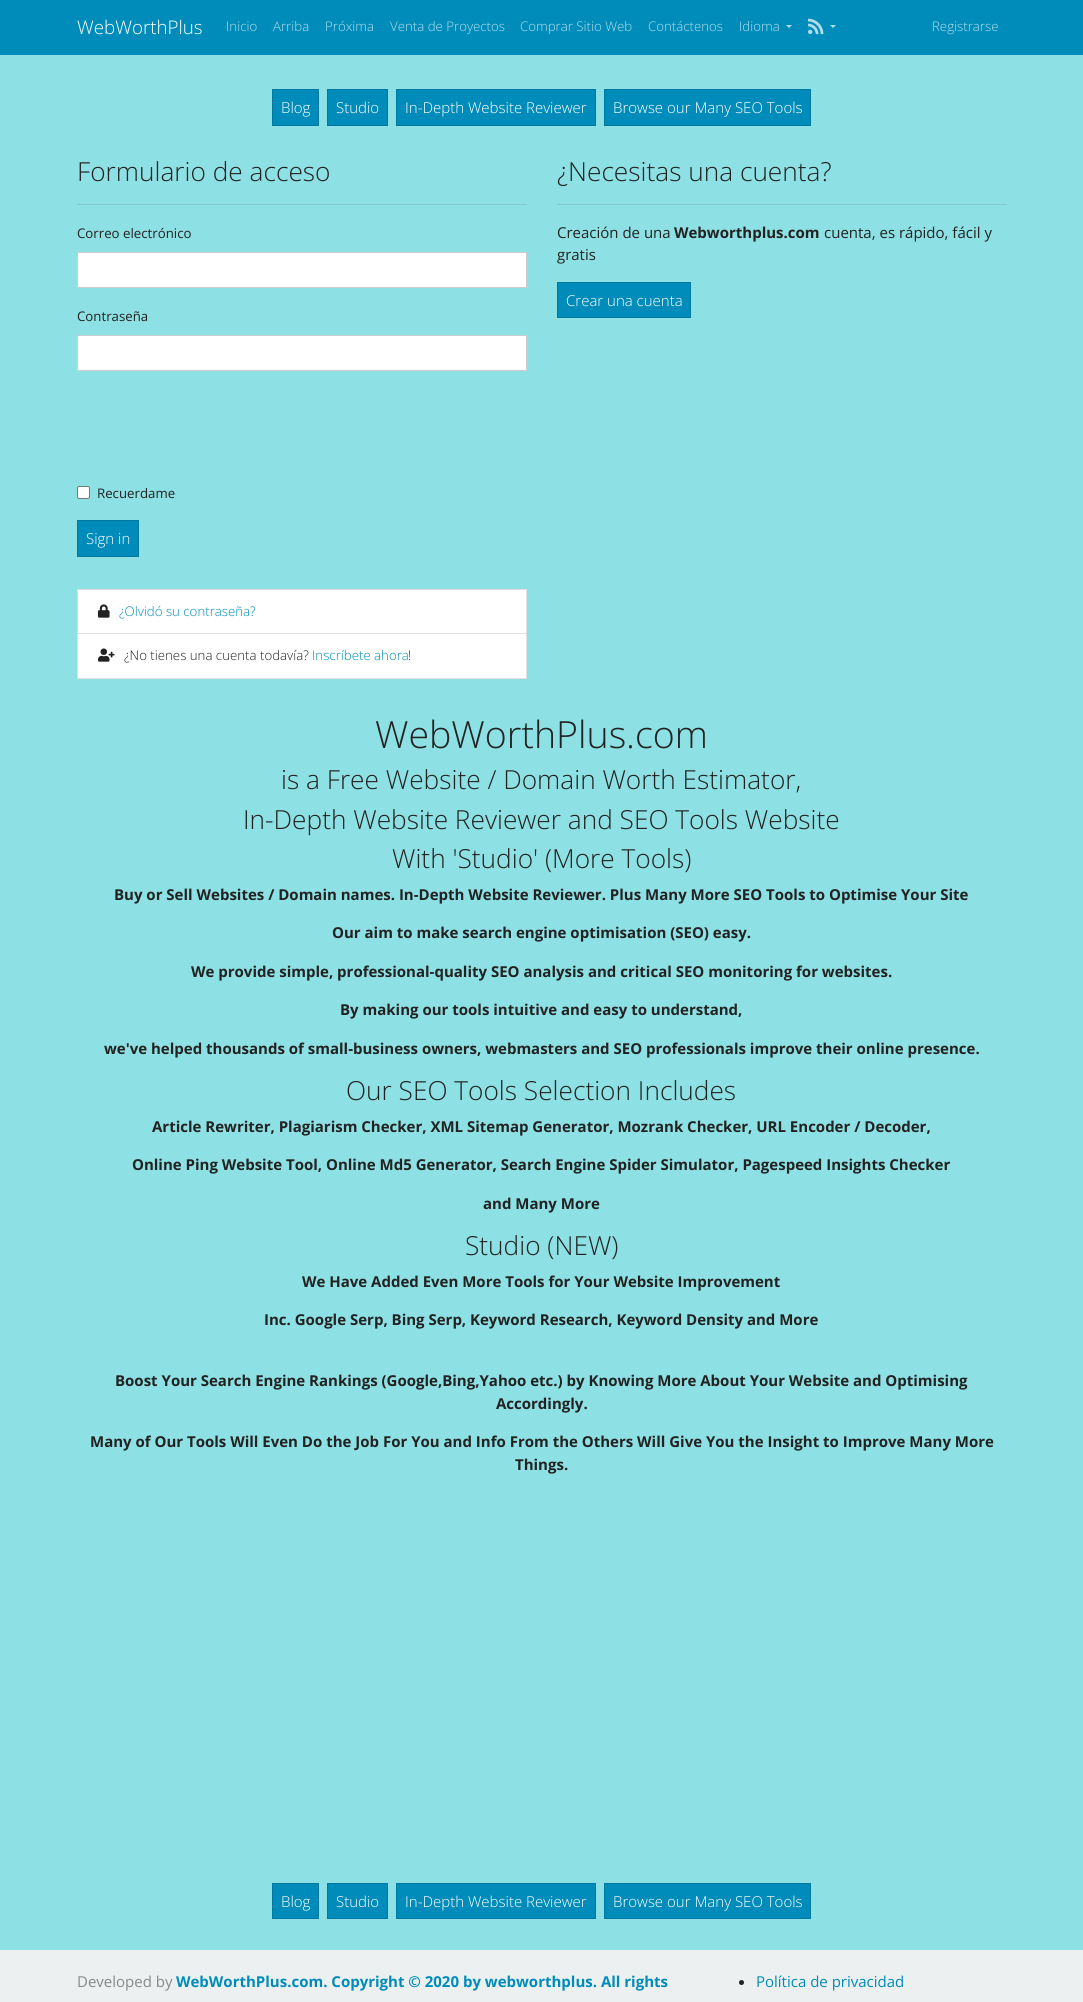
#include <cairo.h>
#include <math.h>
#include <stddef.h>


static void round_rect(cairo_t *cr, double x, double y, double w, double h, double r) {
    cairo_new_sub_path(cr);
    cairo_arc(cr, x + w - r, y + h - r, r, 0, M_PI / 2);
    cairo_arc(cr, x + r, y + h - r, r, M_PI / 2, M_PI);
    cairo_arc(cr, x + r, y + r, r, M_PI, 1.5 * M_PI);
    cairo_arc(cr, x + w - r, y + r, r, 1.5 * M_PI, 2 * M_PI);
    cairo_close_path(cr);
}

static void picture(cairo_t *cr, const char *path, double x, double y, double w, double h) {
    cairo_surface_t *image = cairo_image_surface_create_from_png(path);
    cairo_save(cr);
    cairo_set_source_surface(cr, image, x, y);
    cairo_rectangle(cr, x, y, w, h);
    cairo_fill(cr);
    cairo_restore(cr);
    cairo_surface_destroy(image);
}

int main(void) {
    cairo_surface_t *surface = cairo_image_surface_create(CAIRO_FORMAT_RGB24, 1083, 2002);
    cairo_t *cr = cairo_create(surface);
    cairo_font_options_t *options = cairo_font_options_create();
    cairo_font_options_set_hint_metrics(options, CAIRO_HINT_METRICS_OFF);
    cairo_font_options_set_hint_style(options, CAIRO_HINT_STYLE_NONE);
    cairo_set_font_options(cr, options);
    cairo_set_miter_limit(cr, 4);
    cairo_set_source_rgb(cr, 0.553, 0.878, 0.894);
    cairo_paint(cr);
    cairo_set_source_rgb(cr, 0, 0.549, 0.729);
    cairo_rectangle(cr, 0, 0, 1083, 55);
    cairo_fill(cr);
    cairo_select_font_face(cr, "Open Sans Light", CAIRO_FONT_SLANT_NORMAL, CAIRO_FONT_WEIGHT_NORMAL);
    cairo_set_font_size(cr, 18.75);
    cairo_set_source_rgb(cr, 1, 1, 1);
    cairo_move_to(cr, 77, 34);
    cairo_show_text(cr, "WebWorthPlus");
    cairo_set_font_size(cr, 13.25);
    cairo_set_source_rgb(cr, 0.702, 0.867, 0.918);
    cairo_move_to(cr, 226, 31);
    cairo_show_text(cr, "Inicio");
    cairo_move_to(cr, 273, 31);
    cairo_show_text(cr, "Arriba");
    cairo_move_to(cr, 325, 31);
    cairo_show_text(cr, "Próxima");
    cairo_move_to(cr, 390, 31);
    cairo_show_text(cr, "Venta de Proyectos");
    cairo_move_to(cr, 520, 31);
    cairo_show_text(cr, "Comprar Sitio Web");
    cairo_move_to(cr, 648, 31);
    cairo_show_text(cr, "Contáctenos");
    cairo_move_to(cr, 739, 31);
    cairo_show_text(cr, "Idioma");
    cairo_new_path(cr);
    cairo_move_to(cr, 786, 25);
    cairo_line_to(cr, 792, 25);
    cairo_line_to(cr, 789, 28);
    cairo_close_path(cr);
    cairo_fill(cr);
    picture(cr, "img1.png", 808, 18, 16, 17);
    cairo_new_path(cr);
    cairo_move_to(cr, 830, 25);
    cairo_line_to(cr, 836, 25);
    cairo_line_to(cr, 833, 28);
    cairo_close_path(cr);
    cairo_fill(cr);
    cairo_move_to(cr, 932, 31);
    cairo_show_text(cr, "Registrarse");
    cairo_set_source_rgb(cr, 0, 0.549, 0.729);
    cairo_rectangle(cr, 272.5, 89.5, 46, 36);
    cairo_fill_preserve(cr);
    cairo_set_source_rgb(cr, 0, 0.475, 0.631);
    cairo_set_line_width(cr, 1);
    cairo_stroke(cr);
    cairo_set_font_size(cr, 15);
    cairo_set_source_rgb(cr, 1, 1, 1);
    cairo_move_to(cr, 281, 113);
    cairo_show_text(cr, "Blog");
    cairo_set_source_rgb(cr, 0, 0.549, 0.729);
    cairo_rectangle(cr, 327.5, 89.5, 60, 36);
    cairo_fill_preserve(cr);
    cairo_set_source_rgb(cr, 0, 0.475, 0.631);
    cairo_stroke(cr);
    cairo_set_source_rgb(cr, 1, 1, 1);
    cairo_move_to(cr, 336, 113);
    cairo_show_text(cr, "Studio");
    cairo_set_source_rgb(cr, 0, 0.549, 0.729);
    cairo_rectangle(cr, 396.5, 89.5, 199, 36);
    cairo_fill_preserve(cr);
    cairo_set_source_rgb(cr, 0, 0.475, 0.631);
    cairo_stroke(cr);
    cairo_set_source_rgb(cr, 1, 1, 1);
    cairo_move_to(cr, 405, 113);
    cairo_show_text(cr, "In-Depth Website Reviewer");
    cairo_set_source_rgb(cr, 0, 0.549, 0.729);
    cairo_rectangle(cr, 604.5, 89.5, 206, 36);
    cairo_fill_preserve(cr);
    cairo_set_source_rgb(cr, 0, 0.475, 0.631);
    cairo_stroke(cr);
    cairo_set_source_rgb(cr, 1, 1, 1);
    cairo_move_to(cr, 613, 113);
    cairo_show_text(cr, "Browse our Many SEO Tools");
    cairo_set_font_size(cr, 26.25);
    cairo_set_source_rgb(cr, 0.133, 0.133, 0.133);
    cairo_move_to(cr, 77, 181);
    cairo_show_text(cr, "Formulario de acceso");
    cairo_set_source_rgb(cr, 0.498, 0.792, 0.804);
    cairo_rectangle(cr, 77, 204, 450, 1);
    cairo_fill(cr);
    cairo_select_font_face(cr, "Open Sans", CAIRO_FONT_SLANT_NORMAL, CAIRO_FONT_WEIGHT_NORMAL);
    cairo_set_font_size(cr, 13.25);
    cairo_set_source_rgb(cr, 0.133, 0.133, 0.133);
    cairo_move_to(cr, 77, 238);
    cairo_show_text(cr, "Correo electrónico");
    cairo_set_source_rgb(cr, 1, 1, 1);
    cairo_rectangle(cr, 77.5, 252.5, 449, 35);
    cairo_fill_preserve(cr);
    cairo_set_source_rgb(cr, 0.8, 0.8, 0.8);
    cairo_stroke(cr);
    cairo_set_source_rgb(cr, 0.133, 0.133, 0.133);
    cairo_move_to(cr, 77, 321);
    cairo_show_text(cr, "Contraseña");
    cairo_set_source_rgb(cr, 1, 1, 1);
    cairo_rectangle(cr, 77.5, 335.5, 449, 35);
    cairo_fill_preserve(cr);
    cairo_set_source_rgb(cr, 0.8, 0.8, 0.8);
    cairo_stroke(cr);
    cairo_set_source_rgb(cr, 1, 1, 1);
    round_rect(cr, 77.5, 486.5, 12, 12, 1.5);
    cairo_fill_preserve(cr);
    cairo_set_source_rgb(cr, 0.463, 0.463, 0.463);
    cairo_stroke(cr);
    cairo_set_source_rgb(cr, 0.133, 0.133, 0.133);
    cairo_move_to(cr, 97, 498);
    cairo_show_text(cr, "Recuerdame");
    cairo_set_source_rgb(cr, 0, 0.549, 0.729);
    cairo_rectangle(cr, 77.5, 520.5, 61, 36);
    cairo_fill_preserve(cr);
    cairo_set_source_rgb(cr, 0, 0.475, 0.631);
    cairo_stroke(cr);
    cairo_select_font_face(cr, "Open Sans Light", CAIRO_FONT_SLANT_NORMAL, CAIRO_FONT_WEIGHT_NORMAL);
    cairo_set_font_size(cr, 15);
    cairo_set_source_rgb(cr, 1, 1, 1);
    cairo_move_to(cr, 86, 544);
    cairo_show_text(cr, "Sign in");
    cairo_rectangle(cr, 77.5, 589.5, 449, 44);
    cairo_fill_preserve(cr);
    cairo_set_source_rgb(cr, 0.875, 0.875, 0.875);
    cairo_stroke(cr);
    picture(cr, "img2.png", 98, 604, 12, 14);
    cairo_set_font_size(cr, 13.25);
    cairo_set_source_rgb(cr, 0, 0.549, 0.729);
    cairo_move_to(cr, 119, 616);
    cairo_show_text(cr, "¿Olvidó su contraseña?");
    cairo_set_source_rgb(cr, 1, 1, 1);
    cairo_rectangle(cr, 77, 634, 450, 45);
    cairo_fill(cr);
    cairo_set_source_rgb(cr, 0.875, 0.875, 0.875);
    cairo_new_path(cr);
    cairo_move_to(cr, 527, 634);
    cairo_line_to(cr, 527, 679);
    cairo_line_to(cr, 526, 678);
    cairo_line_to(cr, 526, 634);
    cairo_close_path(cr);
    cairo_fill(cr);
    cairo_set_source_rgba(cr, 0, 0, 0, 0.12);
    cairo_new_path(cr);
    cairo_move_to(cr, 527, 679);
    cairo_line_to(cr, 77, 679);
    cairo_line_to(cr, 78, 678);
    cairo_line_to(cr, 526, 678);
    cairo_close_path(cr);
    cairo_fill(cr);
    cairo_new_path(cr);
    cairo_move_to(cr, 77, 679);
    cairo_line_to(cr, 77, 634);
    cairo_line_to(cr, 78, 634);
    cairo_line_to(cr, 78, 678);
    cairo_close_path(cr);
    cairo_fill(cr);
    picture(cr, "img3.png", 98, 648, 17, 14);
    cairo_set_source_rgb(cr, 0.133, 0.133, 0.133);
    cairo_move_to(cr, 124, 660);
    cairo_show_text(cr, "¿No tienes una cuenta todavía?");
    cairo_set_source_rgb(cr, 0, 0.549, 0.729);
    cairo_move_to(cr, 312, 660);
    cairo_show_text(cr, "Inscríbete ahora");
    cairo_set_source_rgb(cr, 0.133, 0.133, 0.133);
    cairo_move_to(cr, 408, 660);
    cairo_show_text(cr, "!");
    cairo_set_font_size(cr, 26.25);
    cairo_move_to(cr, 557, 181);
    cairo_show_text(cr, "¿Necesitas una cuenta?");
    cairo_set_source_rgb(cr, 0.498, 0.792, 0.804);
    cairo_rectangle(cr, 557, 204, 450, 1);
    cairo_fill(cr);
    cairo_select_font_face(cr, "Open Sans", CAIRO_FONT_SLANT_NORMAL, CAIRO_FONT_WEIGHT_NORMAL);
    cairo_set_font_size(cr, 15);
    cairo_set_source_rgb(cr, 0.133, 0.133, 0.133);
    cairo_move_to(cr, 557, 238);
    cairo_show_text(cr, "Creación de una");
    cairo_select_font_face(cr, "Open Sans", CAIRO_FONT_SLANT_NORMAL, CAIRO_FONT_WEIGHT_BOLD);
    cairo_move_to(cr, 674, 238);
    cairo_show_text(cr, "Webworthplus.com");
    cairo_select_font_face(cr, "Open Sans", CAIRO_FONT_SLANT_NORMAL, CAIRO_FONT_WEIGHT_NORMAL);
    cairo_move_to(cr, 824, 238);
    cairo_show_text(cr, "cuenta, es rápido, fácil y");
    cairo_move_to(cr, 557, 260);
    cairo_show_text(cr, "gratis");
    cairo_set_source_rgb(cr, 0, 0.549, 0.729);
    cairo_rectangle(cr, 557.5, 282.5, 133, 35);
    cairo_fill_preserve(cr);
    cairo_set_source_rgb(cr, 0, 0.475, 0.631);
    cairo_stroke(cr);
    cairo_select_font_face(cr, "Open Sans Light", CAIRO_FONT_SLANT_NORMAL, CAIRO_FONT_WEIGHT_NORMAL);
    cairo_set_source_rgb(cr, 1, 1, 1);
    cairo_move_to(cr, 566, 306);
    cairo_show_text(cr, "Crear una cuenta");
    cairo_set_font_size(cr, 37.5);
    cairo_set_source_rgb(cr, 0.133, 0.133, 0.133);
    cairo_move_to(cr, 375, 748);
    cairo_show_text(cr, "WebWorthPlus.com");
    cairo_set_font_size(cr, 26.25);
    cairo_move_to(cr, 281, 789);
    cairo_show_text(cr, "is a Free Website / Domain Worth Estimator,");
    cairo_move_to(cr, 243, 829);
    cairo_show_text(cr, "In-Depth Website Reviewer and SEO Tools Website");
    cairo_move_to(cr, 392, 868);
    cairo_show_text(cr, "With 'Studio' (More Tools)");
    cairo_select_font_face(cr, "Open Sans", CAIRO_FONT_SLANT_NORMAL, CAIRO_FONT_WEIGHT_BOLD);
    cairo_set_font_size(cr, 15);
    cairo_move_to(cr, 114, 900);
    cairo_show_text(cr, "Buy or Sell Websites / Domain names. In-Depth Website Reviewer. Plus Many More SEO Tools to Optimise Your Site");
    cairo_move_to(cr, 332, 938);
    cairo_show_text(cr, "Our aim to make search engine optimisation (SEO) easy.");
    cairo_move_to(cr, 191, 977);
    cairo_show_text(cr, "We provide simple, professional-quality SEO analysis and critical SEO monitoring for websites.");
    cairo_move_to(cr, 340, 1015);
    cairo_show_text(cr, "By making our tools intuitive and easy to understand,");
    cairo_move_to(cr, 104, 1054);
    cairo_show_text(cr, "we've helped thousands of small-business owners, webmasters and SEO professionals improve their online presence.");
    cairo_select_font_face(cr, "Open Sans Light", CAIRO_FONT_SLANT_NORMAL, CAIRO_FONT_WEIGHT_NORMAL);
    cairo_set_font_size(cr, 26.25);
    cairo_move_to(cr, 346, 1100);
    cairo_show_text(cr, "Our SEO Tools Selection Includes");
    cairo_select_font_face(cr, "Open Sans", CAIRO_FONT_SLANT_NORMAL, CAIRO_FONT_WEIGHT_BOLD);
    cairo_set_font_size(cr, 15);
    cairo_move_to(cr, 152, 1132);
    cairo_show_text(cr, "Article Rewriter, Plagiarism Checker, XML Sitemap Generator, Mozrank Checker, URL Encoder / Decoder,");
    cairo_move_to(cr, 132, 1170);
    cairo_show_text(cr, "Online Ping Website Tool, Online Md5 Generator, Search Engine Spider Simulator, Pagespeed Insights Checker");
    cairo_move_to(cr, 483, 1209);
    cairo_show_text(cr, "and Many More");
    cairo_select_font_face(cr, "Open Sans Light", CAIRO_FONT_SLANT_NORMAL, CAIRO_FONT_WEIGHT_NORMAL);
    cairo_set_font_size(cr, 26.25);
    cairo_move_to(cr, 465, 1255);
    cairo_show_text(cr, "Studio (NEW)");
    cairo_select_font_face(cr, "Open Sans", CAIRO_FONT_SLANT_NORMAL, CAIRO_FONT_WEIGHT_BOLD);
    cairo_set_font_size(cr, 15);
    cairo_move_to(cr, 302, 1287);
    cairo_show_text(cr, "We Have Added Even More Tools for Your Website Improvement");
    cairo_move_to(cr, 264, 1325);
    cairo_show_text(cr, "Inc. Google Serp, Bing Serp, Keyword Research, Keyword Density and More");
    cairo_move_to(cr, 115, 1386);
    cairo_show_text(cr, "Boost Your Search Engine Rankings (Google,Bing,Yahoo etc.) by Knowing More About Your Website and Optimising");
    cairo_move_to(cr, 496, 1409);
    cairo_show_text(cr, "Accordingly.");
    cairo_move_to(cr, 90, 1447);
    cairo_show_text(cr, "Many of Our Tools Will Even Do the Job For You and Info From the Others Will Give You the Insight to Improve Many More");
    cairo_move_to(cr, 515, 1470);
    cairo_show_text(cr, "Things.");
    cairo_set_source_rgb(cr, 0, 0.549, 0.729);
    cairo_rectangle(cr, 272.5, 1883.5, 46, 35);
    cairo_fill_preserve(cr);
    cairo_set_source_rgb(cr, 0, 0.475, 0.631);
    cairo_stroke(cr);
    cairo_select_font_face(cr, "Open Sans Light", CAIRO_FONT_SLANT_NORMAL, CAIRO_FONT_WEIGHT_NORMAL);
    cairo_set_source_rgb(cr, 1, 1, 1);
    cairo_move_to(cr, 281, 1907);
    cairo_show_text(cr, "Blog");
    cairo_set_source_rgb(cr, 0, 0.549, 0.729);
    cairo_rectangle(cr, 327.5, 1883.5, 60, 35);
    cairo_fill_preserve(cr);
    cairo_set_source_rgb(cr, 0, 0.475, 0.631);
    cairo_stroke(cr);
    cairo_set_source_rgb(cr, 1, 1, 1);
    cairo_move_to(cr, 336, 1907);
    cairo_show_text(cr, "Studio");
    cairo_set_source_rgb(cr, 0, 0.549, 0.729);
    cairo_rectangle(cr, 396.5, 1883.5, 199, 35);
    cairo_fill_preserve(cr);
    cairo_set_source_rgb(cr, 0, 0.475, 0.631);
    cairo_stroke(cr);
    cairo_set_source_rgb(cr, 1, 1, 1);
    cairo_move_to(cr, 405, 1907);
    cairo_show_text(cr, "In-Depth Website Reviewer");
    cairo_set_source_rgb(cr, 0, 0.549, 0.729);
    cairo_rectangle(cr, 604.5, 1883.5, 206, 35);
    cairo_fill_preserve(cr);
    cairo_set_source_rgb(cr, 0, 0.475, 0.631);
    cairo_stroke(cr);
    cairo_set_source_rgb(cr, 1, 1, 1);
    cairo_move_to(cr, 613, 1907);
    cairo_show_text(cr, "Browse our Many SEO Tools");
    cairo_set_source_rgb(cr, 0.925, 0.941, 0.945);
    cairo_rectangle(cr, 0, 1950, 1083, 52);
    cairo_fill(cr);
    cairo_select_font_face(cr, "Open Sans", CAIRO_FONT_SLANT_NORMAL, CAIRO_FONT_WEIGHT_NORMAL);
    cairo_set_source_rgb(cr, 0.533, 0.533, 0.533);
    cairo_move_to(cr, 77, 1987);
    cairo_show_text(cr, "Developed by");
    cairo_select_font_face(cr, "Open Sans", CAIRO_FONT_SLANT_NORMAL, CAIRO_FONT_WEIGHT_BOLD);
    cairo_set_source_rgb(cr, 0, 0.549, 0.729);
    cairo_move_to(cr, 176, 1987);
    cairo_show_text(cr, "WebWorthPlus.com. Copyright © 2020 by webworthplus. All rights");
    cairo_set_source_rgb(cr, 0.133, 0.133, 0.133);
    cairo_new_path(cr);
    cairo_arc(cr, 741.5, 1982.5, 2.5, 0, 2 * M_PI);
    cairo_fill(cr);
    cairo_select_font_face(cr, "Open Sans", CAIRO_FONT_SLANT_NORMAL, CAIRO_FONT_WEIGHT_NORMAL);
    cairo_set_source_rgb(cr, 0, 0.549, 0.729);
    cairo_move_to(cr, 756, 1987);
    cairo_show_text(cr, "Política de privacidad");
    cairo_surface_write_to_png(surface, "page.png");
    cairo_font_options_destroy(options);
    cairo_destroy(cr);
    cairo_surface_destroy(surface);
    return 0;
}
